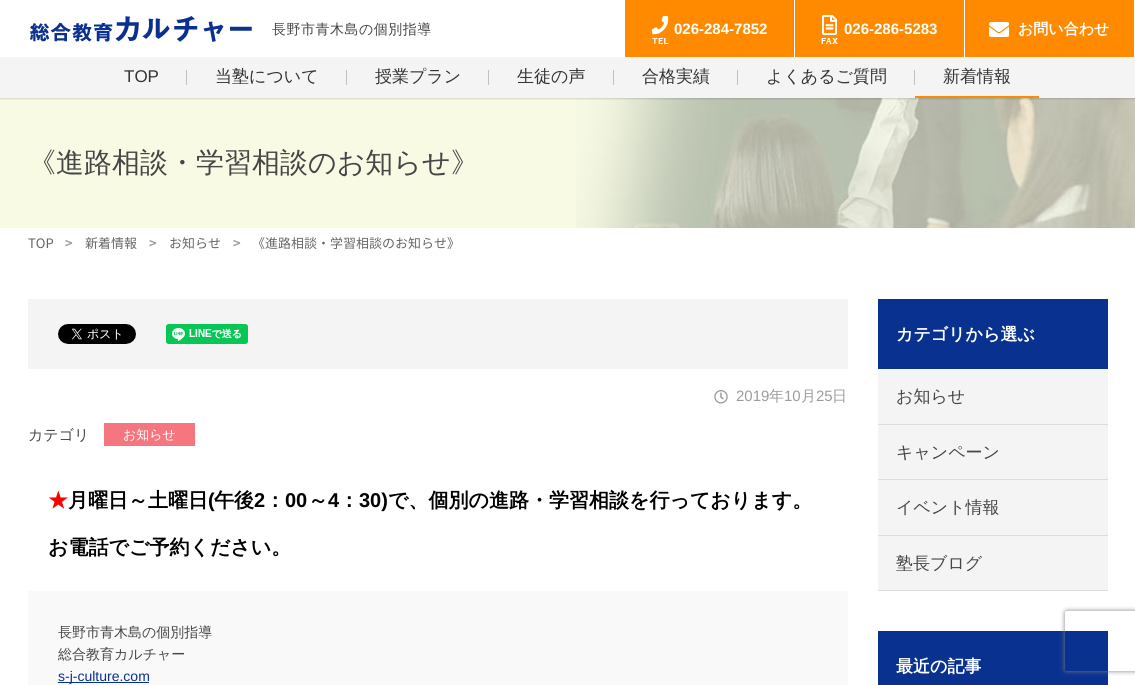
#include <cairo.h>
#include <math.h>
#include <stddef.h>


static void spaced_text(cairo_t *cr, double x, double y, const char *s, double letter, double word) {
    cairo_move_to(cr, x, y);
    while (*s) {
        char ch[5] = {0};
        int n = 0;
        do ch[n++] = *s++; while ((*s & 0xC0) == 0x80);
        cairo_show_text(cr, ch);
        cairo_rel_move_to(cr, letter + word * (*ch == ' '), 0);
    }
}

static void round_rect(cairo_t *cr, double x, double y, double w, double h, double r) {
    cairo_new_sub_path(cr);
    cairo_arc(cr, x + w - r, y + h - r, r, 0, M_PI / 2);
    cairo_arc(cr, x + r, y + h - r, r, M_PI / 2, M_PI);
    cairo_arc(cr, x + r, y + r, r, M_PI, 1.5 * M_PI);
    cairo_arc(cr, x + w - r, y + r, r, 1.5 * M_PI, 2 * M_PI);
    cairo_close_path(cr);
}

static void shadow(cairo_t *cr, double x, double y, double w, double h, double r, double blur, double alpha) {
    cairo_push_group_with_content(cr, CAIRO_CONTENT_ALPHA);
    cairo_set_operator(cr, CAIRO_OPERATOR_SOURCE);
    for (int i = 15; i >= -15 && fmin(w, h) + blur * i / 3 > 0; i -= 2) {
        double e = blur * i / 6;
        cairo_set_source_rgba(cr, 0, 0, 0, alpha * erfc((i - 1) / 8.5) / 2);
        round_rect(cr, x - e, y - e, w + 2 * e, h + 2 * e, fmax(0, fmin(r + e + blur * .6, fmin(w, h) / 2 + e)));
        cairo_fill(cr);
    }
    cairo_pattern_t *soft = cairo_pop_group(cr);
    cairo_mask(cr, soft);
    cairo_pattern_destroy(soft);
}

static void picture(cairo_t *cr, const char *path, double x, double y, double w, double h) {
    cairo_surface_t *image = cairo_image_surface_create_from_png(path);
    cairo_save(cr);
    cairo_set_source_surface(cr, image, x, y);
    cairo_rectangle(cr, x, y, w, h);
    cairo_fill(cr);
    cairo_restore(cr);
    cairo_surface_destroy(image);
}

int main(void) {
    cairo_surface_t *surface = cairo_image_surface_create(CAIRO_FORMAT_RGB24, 1135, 685);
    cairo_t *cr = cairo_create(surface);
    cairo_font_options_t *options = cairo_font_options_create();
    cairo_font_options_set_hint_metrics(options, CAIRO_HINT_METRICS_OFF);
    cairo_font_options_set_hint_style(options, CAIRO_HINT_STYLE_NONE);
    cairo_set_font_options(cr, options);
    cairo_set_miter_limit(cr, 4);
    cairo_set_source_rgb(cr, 1, 1, 1);
    cairo_paint(cr);
    cairo_set_source_rgb(cr, 0.969, 0.98, 0.894);
    cairo_rectangle(cr, 0, 98, 576, 130);
    cairo_fill(cr);
    picture(cr, "img5.png", 576, 98, 559, 130);
    cairo_save(cr);
    cairo_rectangle(cr, 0, 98, 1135, 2);
    cairo_clip(cr);
    cairo_set_source_rgb(cr, 0, 0, 0);
    shadow(cr, 0, 1, 1135, 98, 0, 1, 0.15);
    cairo_restore(cr);
    picture(cr, "img1.png", 30, 16, 222, 26);
    cairo_select_font_face(cr, "WenQuanYi Zen Hei Medium", CAIRO_FONT_SLANT_NORMAL, CAIRO_FONT_WEIGHT_NORMAL);
    cairo_set_font_size(cr, 14);
    cairo_set_source_rgb(cr, 0.275, 0.275, 0.275);
    spaced_text(cr, 272, 34, "長野市青木島の個別指導", 0.5, 0);
    cairo_set_source_rgb(cr, 1, 0.541, 0);
    cairo_rectangle(cr, 625, 0, 169, 57);
    cairo_fill(cr);
    picture(cr, "img2.png", 651, 15, 18, 29);
    cairo_select_font_face(cr, "Liberation Sans", CAIRO_FONT_SLANT_NORMAL, CAIRO_FONT_WEIGHT_BOLD);
    cairo_set_font_size(cr, 15);
    cairo_set_source_rgb(cr, 1, 1, 1);
    cairo_move_to(cr, 674, 34);
    cairo_show_text(cr, "026-284-7852");
    cairo_set_source_rgb(cr, 1, 0.541, 0);
    cairo_rectangle(cr, 795, 0, 169, 57);
    cairo_fill(cr);
    picture(cr, "img3.png", 821, 15, 17, 29);
    cairo_set_source_rgb(cr, 1, 1, 1);
    cairo_move_to(cr, 844, 34);
    cairo_show_text(cr, "026-286-5283");
    cairo_set_source_rgb(cr, 1, 0.541, 0);
    cairo_rectangle(cr, 965, 0, 169, 57);
    cairo_fill(cr);
    picture(cr, "img4.png", 989, 22, 20, 15);
    cairo_select_font_face(cr, "WenQuanYi Zen Hei", CAIRO_FONT_SLANT_NORMAL, CAIRO_FONT_WEIGHT_BOLD);
    cairo_set_source_rgb(cr, 1, 1, 1);
    cairo_move_to(cr, 1018, 34);
    cairo_show_text(cr, "お問い合わせ");
    cairo_set_source_rgb(cr, 0.957, 0.957, 0.957);
    cairo_rectangle(cr, 0, 57, 1135, 41);
    cairo_fill(cr);
    cairo_select_font_face(cr, "Liberation Sans", CAIRO_FONT_SLANT_NORMAL, CAIRO_FONT_WEIGHT_NORMAL);
    cairo_set_font_size(cr, 17);
    cairo_set_source_rgb(cr, 0.2, 0.2, 0.2);
    cairo_move_to(cr, 124, 82);
    cairo_show_text(cr, "TOP");
    cairo_set_source_rgb(cr, 0.753, 0.757, 0.761);
    cairo_rectangle(cr, 186, 70, 1, 15);
    cairo_fill(cr);
    cairo_select_font_face(cr, "WenQuanYi Zen Hei Medium", CAIRO_FONT_SLANT_NORMAL, CAIRO_FONT_WEIGHT_NORMAL);
    cairo_set_source_rgb(cr, 0.2, 0.2, 0.2);
    cairo_move_to(cr, 215, 82);
    cairo_show_text(cr, "当塾について");
    cairo_set_source_rgb(cr, 0.753, 0.757, 0.761);
    cairo_rectangle(cr, 346, 70, 1, 15);
    cairo_fill(cr);
    cairo_set_source_rgb(cr, 0.2, 0.2, 0.2);
    cairo_move_to(cr, 375, 82);
    cairo_show_text(cr, "授業プラン");
    cairo_set_source_rgb(cr, 0.753, 0.757, 0.761);
    cairo_rectangle(cr, 488, 70, 1, 15);
    cairo_fill(cr);
    cairo_set_source_rgb(cr, 0.2, 0.2, 0.2);
    cairo_move_to(cr, 517, 82);
    cairo_show_text(cr, "生徒の声");
    cairo_set_source_rgb(cr, 0.753, 0.757, 0.761);
    cairo_rectangle(cr, 613, 70, 1, 15);
    cairo_fill(cr);
    cairo_set_source_rgb(cr, 0.2, 0.2, 0.2);
    cairo_move_to(cr, 642, 82);
    cairo_show_text(cr, "合格実績");
    cairo_set_source_rgb(cr, 0.753, 0.757, 0.761);
    cairo_rectangle(cr, 737, 70, 1, 15);
    cairo_fill(cr);
    cairo_set_source_rgb(cr, 0.2, 0.2, 0.2);
    cairo_move_to(cr, 766, 82);
    cairo_show_text(cr, "よくあるご質問");
    cairo_set_source_rgb(cr, 0.753, 0.757, 0.761);
    cairo_rectangle(cr, 914, 70, 1, 15);
    cairo_fill(cr);
    cairo_set_source_rgb(cr, 0.2, 0.2, 0.2);
    cairo_move_to(cr, 943, 82);
    cairo_show_text(cr, "新着情報");
    cairo_set_source_rgb(cr, 1, 0.541, 0);
    cairo_rectangle(cr, 915, 96, 124, 2);
    cairo_fill(cr);
    cairo_set_font_size(cr, 28);
    cairo_set_source_rgb(cr, 0.275, 0.275, 0.275);
    cairo_move_to(cr, 28, 172);
    cairo_show_text(cr, "《進路相談・学習相談のお知らせ》");
    cairo_select_font_face(cr, "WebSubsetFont", CAIRO_FONT_SLANT_NORMAL, CAIRO_FONT_WEIGHT_NORMAL);
    cairo_set_font_size(cr, 13);
    cairo_set_source_rgb(cr, 0.4, 0.4, 0.4);
    cairo_move_to(cr, 28, 248);
    cairo_show_text(cr, "TOP");
    cairo_select_font_face(cr, "WebSubsetFont", CAIRO_FONT_SLANT_NORMAL, CAIRO_FONT_WEIGHT_BOLD);
    cairo_set_source_rgb(cr, 0.612, 0.612, 0.612);
    cairo_move_to(cr, 65, 248);
    cairo_show_text(cr, ">");
    cairo_select_font_face(cr, "WebSubsetFont", CAIRO_FONT_SLANT_NORMAL, CAIRO_FONT_WEIGHT_NORMAL);
    cairo_set_source_rgb(cr, 0.4, 0.4, 0.4);
    cairo_move_to(cr, 85, 248);
    cairo_show_text(cr, "新着情報");
    cairo_select_font_face(cr, "WebSubsetFont", CAIRO_FONT_SLANT_NORMAL, CAIRO_FONT_WEIGHT_BOLD);
    cairo_set_source_rgb(cr, 0.612, 0.612, 0.612);
    cairo_move_to(cr, 149, 248);
    cairo_show_text(cr, ">");
    cairo_select_font_face(cr, "WebSubsetFont", CAIRO_FONT_SLANT_NORMAL, CAIRO_FONT_WEIGHT_NORMAL);
    cairo_set_source_rgb(cr, 0.4, 0.4, 0.4);
    cairo_move_to(cr, 169, 248);
    cairo_show_text(cr, "お知らせ");
    cairo_select_font_face(cr, "WebSubsetFont", CAIRO_FONT_SLANT_NORMAL, CAIRO_FONT_WEIGHT_BOLD);
    cairo_set_source_rgb(cr, 0.612, 0.612, 0.612);
    cairo_move_to(cr, 233, 248);
    cairo_show_text(cr, ">");
    cairo_select_font_face(cr, "WebSubsetFont", CAIRO_FONT_SLANT_NORMAL, CAIRO_FONT_WEIGHT_NORMAL);
    cairo_set_source_rgb(cr, 0.4, 0.4, 0.4);
    cairo_move_to(cr, 252, 248);
    cairo_show_text(cr, "《進路相談・学習相談のお知らせ》");
    cairo_set_source_rgb(cr, 0.957, 0.957, 0.957);
    cairo_rectangle(cr, 28, 299, 820, 70);
    cairo_fill(cr);
    picture(cr, "img6.png", 58, 324, 78, 20);
    picture(cr, "img7.png", 166, 324, 82, 20);
    picture(cr, "img8.png", 714, 390, 14, 14);
    cairo_select_font_face(cr, "Liberation Sans", CAIRO_FONT_SLANT_NORMAL, CAIRO_FONT_WEIGHT_NORMAL);
    cairo_set_font_size(cr, 15);
    cairo_set_source_rgb(cr, 0.612, 0.612, 0.612);
    cairo_move_to(cr, 736, 401);
    cairo_show_text(cr, "2019");
    cairo_select_font_face(cr, "WenQuanYi Zen Hei Medium", CAIRO_FONT_SLANT_NORMAL, CAIRO_FONT_WEIGHT_NORMAL);
    cairo_move_to(cr, 769, 401);
    cairo_show_text(cr, "年");
    cairo_select_font_face(cr, "Liberation Sans", CAIRO_FONT_SLANT_NORMAL, CAIRO_FONT_WEIGHT_NORMAL);
    cairo_move_to(cr, 784, 401);
    cairo_show_text(cr, "10");
    cairo_select_font_face(cr, "WenQuanYi Zen Hei Medium", CAIRO_FONT_SLANT_NORMAL, CAIRO_FONT_WEIGHT_NORMAL);
    cairo_move_to(cr, 801, 401);
    cairo_show_text(cr, "月");
    cairo_select_font_face(cr, "Liberation Sans", CAIRO_FONT_SLANT_NORMAL, CAIRO_FONT_WEIGHT_NORMAL);
    cairo_move_to(cr, 816, 401);
    cairo_show_text(cr, "25");
    cairo_select_font_face(cr, "WenQuanYi Zen Hei Medium", CAIRO_FONT_SLANT_NORMAL, CAIRO_FONT_WEIGHT_NORMAL);
    cairo_move_to(cr, 832, 401);
    cairo_show_text(cr, "日");
    cairo_set_source_rgb(cr, 0.275, 0.275, 0.275);
    cairo_move_to(cr, 28, 440);
    cairo_show_text(cr, "カテゴリ");
    cairo_set_source_rgb(cr, 0.961, 0.463, 0.498);
    cairo_rectangle(cr, 104, 423, 91, 23);
    cairo_fill(cr);
    cairo_set_font_size(cr, 13);
    cairo_set_source_rgb(cr, 1, 1, 1);
    cairo_move_to(cr, 123, 439);
    cairo_show_text(cr, "お知らせ");
    cairo_select_font_face(cr, "WenQuanYi Zen Hei", CAIRO_FONT_SLANT_NORMAL, CAIRO_FONT_WEIGHT_BOLD);
    cairo_set_font_size(cr, 20);
    cairo_set_source_rgb(cr, 1, 0, 0);
    cairo_move_to(cr, 48, 507);
    cairo_show_text(cr, "★");
    cairo_set_source_rgb(cr, 0, 0, 0);
    cairo_move_to(cr, 68, 507);
    cairo_show_text(cr, "月曜日～土曜日");
    cairo_select_font_face(cr, "Liberation Sans", CAIRO_FONT_SLANT_NORMAL, CAIRO_FONT_WEIGHT_BOLD);
    cairo_move_to(cr, 208, 507);
    cairo_show_text(cr, "(");
    cairo_select_font_face(cr, "WenQuanYi Zen Hei", CAIRO_FONT_SLANT_NORMAL, CAIRO_FONT_WEIGHT_BOLD);
    cairo_move_to(cr, 214, 507);
    cairo_show_text(cr, "午後");
    cairo_select_font_face(cr, "Liberation Sans", CAIRO_FONT_SLANT_NORMAL, CAIRO_FONT_WEIGHT_BOLD);
    cairo_move_to(cr, 254, 507);
    cairo_show_text(cr, "2");
    cairo_select_font_face(cr, "WenQuanYi Zen Hei", CAIRO_FONT_SLANT_NORMAL, CAIRO_FONT_WEIGHT_BOLD);
    cairo_move_to(cr, 265, 507);
    cairo_show_text(cr, "：");
    cairo_select_font_face(cr, "Liberation Sans", CAIRO_FONT_SLANT_NORMAL, CAIRO_FONT_WEIGHT_BOLD);
    cairo_move_to(cr, 285, 507);
    cairo_show_text(cr, "00");
    cairo_select_font_face(cr, "WenQuanYi Zen Hei", CAIRO_FONT_SLANT_NORMAL, CAIRO_FONT_WEIGHT_BOLD);
    cairo_move_to(cr, 308, 507);
    cairo_show_text(cr, "～");
    cairo_select_font_face(cr, "Liberation Sans", CAIRO_FONT_SLANT_NORMAL, CAIRO_FONT_WEIGHT_BOLD);
    cairo_move_to(cr, 328, 507);
    cairo_show_text(cr, "4");
    cairo_select_font_face(cr, "WenQuanYi Zen Hei", CAIRO_FONT_SLANT_NORMAL, CAIRO_FONT_WEIGHT_BOLD);
    cairo_move_to(cr, 339, 507);
    cairo_show_text(cr, "：");
    cairo_select_font_face(cr, "Liberation Sans", CAIRO_FONT_SLANT_NORMAL, CAIRO_FONT_WEIGHT_BOLD);
    cairo_move_to(cr, 359, 507);
    cairo_show_text(cr, "30)");
    cairo_select_font_face(cr, "WenQuanYi Zen Hei", CAIRO_FONT_SLANT_NORMAL, CAIRO_FONT_WEIGHT_BOLD);
    cairo_move_to(cr, 388, 507);
    cairo_show_text(cr, "で、個別の進路・学習相談を行っております。");
    cairo_move_to(cr, 48, 554);
    cairo_show_text(cr, "お電話でご予約ください。");
    cairo_set_source_rgb(cr, 0.973, 0.973, 0.973);
    cairo_rectangle(cr, 28, 591, 820, 94);
    cairo_fill(cr);
    cairo_select_font_face(cr, "WenQuanYi Zen Hei Medium", CAIRO_FONT_SLANT_NORMAL, CAIRO_FONT_WEIGHT_NORMAL);
    cairo_set_font_size(cr, 14);
    cairo_set_source_rgb(cr, 0.275, 0.275, 0.275);
    cairo_move_to(cr, 58, 637);
    cairo_show_text(cr, "長野市青木島の個別指導");
    cairo_move_to(cr, 58, 659);
    cairo_show_text(cr, "総合教育カルチャー");
    cairo_set_source_rgb(cr, 0.039, 0.192, 0.561);
    cairo_rectangle(cr, 58, 682, 91, 1);
    cairo_fill(cr);
    cairo_select_font_face(cr, "Liberation Sans", CAIRO_FONT_SLANT_NORMAL, CAIRO_FONT_WEIGHT_NORMAL);
    cairo_move_to(cr, 58, 681);
    cairo_show_text(cr, "s-j-culture.com");
    cairo_rectangle(cr, 878, 299, 230, 70);
    cairo_fill(cr);
    cairo_select_font_face(cr, "WenQuanYi Zen Hei", CAIRO_FONT_SLANT_NORMAL, CAIRO_FONT_WEIGHT_BOLD);
    cairo_set_font_size(cr, 17);
    cairo_set_source_rgb(cr, 1, 1, 1);
    cairo_move_to(cr, 896, 340);
    cairo_show_text(cr, "カテゴリから選ぶ");
    cairo_set_source_rgb(cr, 0.867, 0.867, 0.867);
    cairo_rectangle(cr, 878, 424, 230, 1);
    cairo_fill(cr);
    cairo_set_source_rgb(cr, 0.957, 0.957, 0.957);
    cairo_rectangle(cr, 878, 369, 230, 55);
    cairo_fill(cr);
    cairo_select_font_face(cr, "WenQuanYi Zen Hei Medium", CAIRO_FONT_SLANT_NORMAL, CAIRO_FONT_WEIGHT_NORMAL);
    cairo_set_source_rgb(cr, 0.275, 0.275, 0.275);
    cairo_move_to(cr, 896, 402);
    cairo_show_text(cr, "お知らせ");
    cairo_set_source_rgb(cr, 0.867, 0.867, 0.867);
    cairo_rectangle(cr, 878, 479, 230, 1);
    cairo_fill(cr);
    cairo_set_source_rgb(cr, 0.957, 0.957, 0.957);
    cairo_rectangle(cr, 878, 425, 230, 54);
    cairo_fill(cr);
    cairo_set_source_rgb(cr, 0.275, 0.275, 0.275);
    cairo_move_to(cr, 896, 458);
    cairo_show_text(cr, "キャンペーン");
    cairo_set_source_rgb(cr, 0.867, 0.867, 0.867);
    cairo_rectangle(cr, 878, 535, 230, 1);
    cairo_fill(cr);
    cairo_set_source_rgb(cr, 0.957, 0.957, 0.957);
    cairo_rectangle(cr, 878, 480, 230, 55);
    cairo_fill(cr);
    cairo_set_source_rgb(cr, 0.275, 0.275, 0.275);
    cairo_move_to(cr, 896, 513);
    cairo_show_text(cr, "イベント情報");
    cairo_set_source_rgb(cr, 0.867, 0.867, 0.867);
    cairo_rectangle(cr, 878, 590, 230, 1);
    cairo_fill(cr);
    cairo_set_source_rgb(cr, 0.957, 0.957, 0.957);
    cairo_rectangle(cr, 878, 536, 230, 54);
    cairo_fill(cr);
    cairo_set_source_rgb(cr, 0.275, 0.275, 0.275);
    cairo_move_to(cr, 896, 569);
    cairo_show_text(cr, "塾長ブログ");
    cairo_set_source_rgb(cr, 0.039, 0.192, 0.561);
    cairo_rectangle(cr, 878, 631, 230, 54);
    cairo_fill(cr);
    cairo_select_font_face(cr, "WenQuanYi Zen Hei", CAIRO_FONT_SLANT_NORMAL, CAIRO_FONT_WEIGHT_BOLD);
    cairo_set_source_rgb(cr, 1, 1, 1);
    cairo_move_to(cr, 896, 672);
    cairo_show_text(cr, "最近の記事");
    cairo_save(cr);
    cairo_set_fill_rule(cr, CAIRO_FILL_RULE_EVEN_ODD);
    cairo_new_path(cr);
    cairo_move_to(cr, 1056, 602);
    cairo_line_to(cr, 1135, 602);
    cairo_line_to(cr, 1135, 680);
    cairo_line_to(cr, 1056, 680);
    cairo_close_path(cr);
    cairo_move_to(cr, 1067, 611);
    cairo_line_to(cr, 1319, 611);
    cairo_curve_to(cr, 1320, 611, 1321, 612, 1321, 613);
    cairo_line_to(cr, 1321, 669);
    cairo_curve_to(cr, 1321, 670, 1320, 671, 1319, 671);
    cairo_line_to(cr, 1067, 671);
    cairo_curve_to(cr, 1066, 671, 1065, 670, 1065, 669);
    cairo_line_to(cr, 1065, 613);
    cairo_curve_to(cr, 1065, 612, 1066, 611, 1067, 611);
    cairo_close_path(cr);
    cairo_clip(cr);
    cairo_set_source_rgb(cr, 0.502, 0.502, 0.502);
    shadow(cr, 1065, 611, 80, 60, 2, 2.5, 1);
    cairo_restore(cr);
    cairo_surface_write_to_png(surface, "page.png");
    cairo_font_options_destroy(options);
    cairo_destroy(cr);
    cairo_surface_destroy(surface);
    return 0;
}
